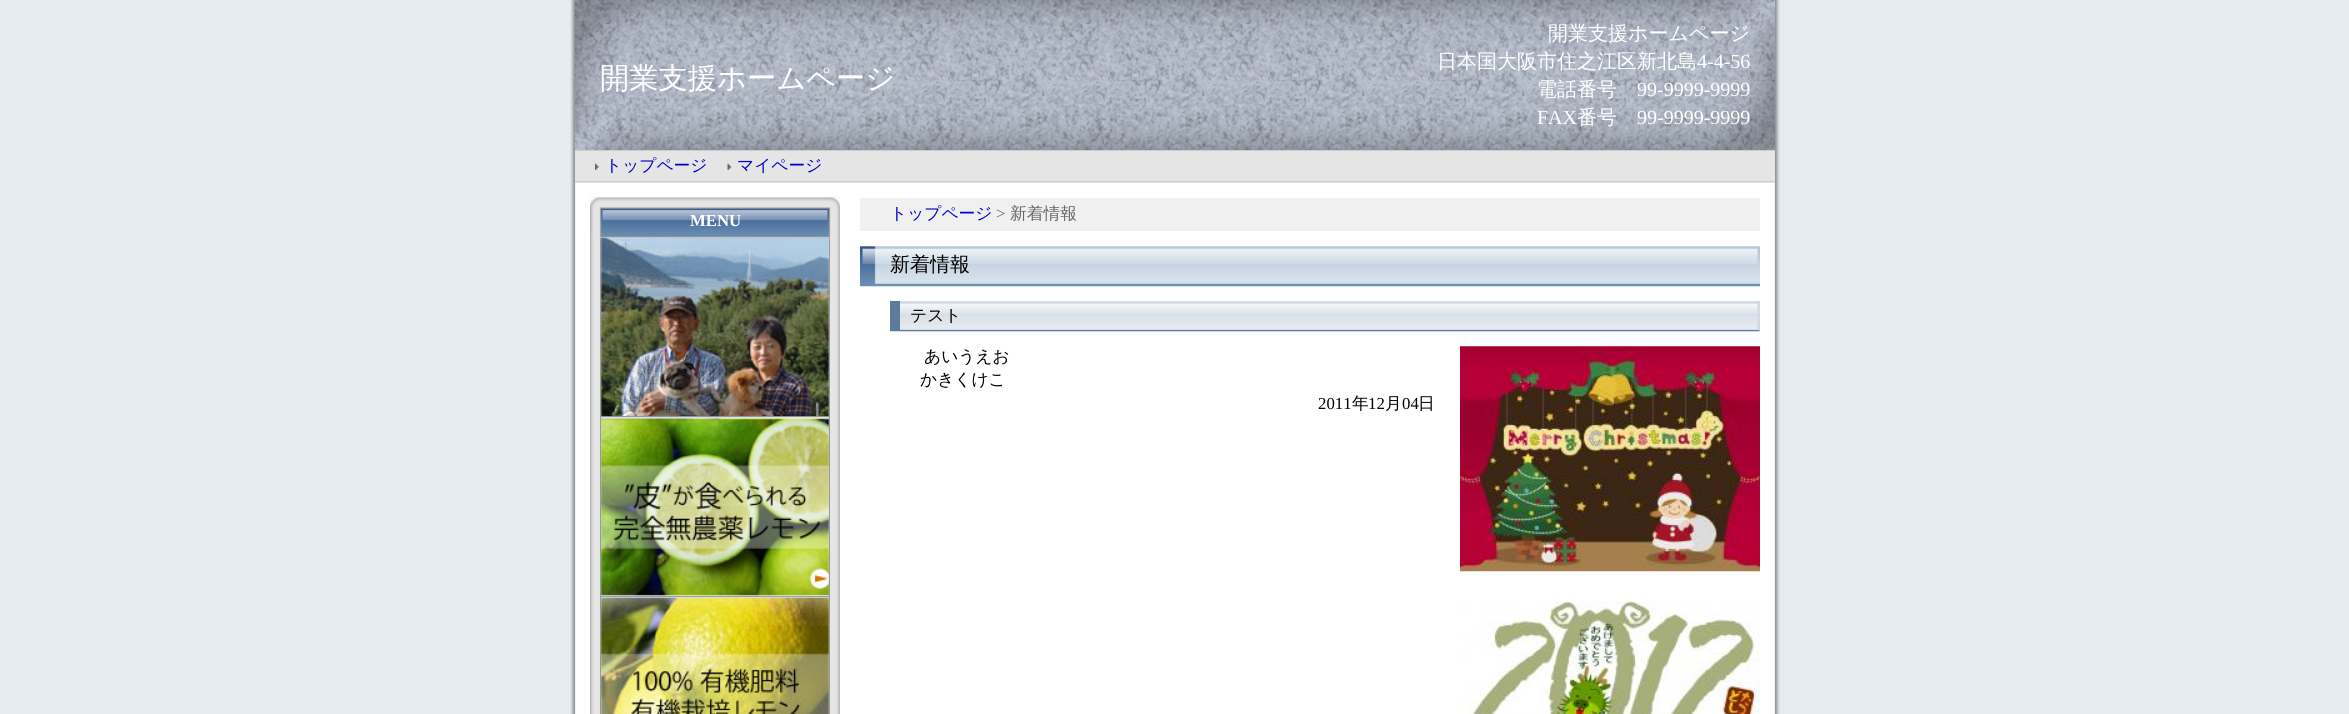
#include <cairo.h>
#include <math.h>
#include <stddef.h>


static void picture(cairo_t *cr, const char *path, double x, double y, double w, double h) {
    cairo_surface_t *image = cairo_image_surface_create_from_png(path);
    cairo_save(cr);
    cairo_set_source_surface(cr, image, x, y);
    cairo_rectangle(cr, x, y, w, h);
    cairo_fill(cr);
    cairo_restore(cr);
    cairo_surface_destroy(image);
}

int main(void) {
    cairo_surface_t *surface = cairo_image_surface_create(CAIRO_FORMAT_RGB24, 2349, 714);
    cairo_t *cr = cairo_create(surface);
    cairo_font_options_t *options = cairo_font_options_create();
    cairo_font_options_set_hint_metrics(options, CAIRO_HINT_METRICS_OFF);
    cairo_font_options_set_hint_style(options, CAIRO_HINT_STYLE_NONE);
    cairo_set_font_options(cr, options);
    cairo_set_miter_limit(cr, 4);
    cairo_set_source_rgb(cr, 0.902, 0.925, 0.949);
    cairo_paint(cr);
    picture(cr, "img1.png", 570, 0, 1210, 714);
    picture(cr, "img2.png", 575, 0, 1200, 150);
    cairo_select_font_face(cr, "WenQuanYi Zen Hei Medium", CAIRO_FONT_SLANT_NORMAL, CAIRO_FONT_WEIGHT_NORMAL);
    cairo_set_font_size(cr, 29.25);
    cairo_set_source_rgb(cr, 1, 1, 1);
    cairo_move_to(cr, 600, 88);
    cairo_show_text(cr, "開業支援ホームページ");
    cairo_set_font_size(cr, 20);
    cairo_move_to(cr, 1548, 40);
    cairo_show_text(cr, "開業支援ホームページ");
    cairo_move_to(cr, 1437, 68);
    cairo_show_text(cr, "日本国大阪市住之江区新北島");
    cairo_select_font_face(cr, "Liberation Serif", CAIRO_FONT_SLANT_NORMAL, CAIRO_FONT_WEIGHT_NORMAL);
    cairo_move_to(cr, 1697, 68);
    cairo_show_text(cr, "4-4-56");
    cairo_select_font_face(cr, "WenQuanYi Zen Hei Medium", CAIRO_FONT_SLANT_NORMAL, CAIRO_FONT_WEIGHT_NORMAL);
    cairo_move_to(cr, 1537, 96);
    cairo_show_text(cr, "電話番号");
    cairo_select_font_face(cr, "Liberation Serif", CAIRO_FONT_SLANT_NORMAL, CAIRO_FONT_WEIGHT_NORMAL);
    cairo_move_to(cr, 1637, 96);
    cairo_show_text(cr, "99-9999-9999");
    cairo_move_to(cr, 1537, 124);
    cairo_show_text(cr, "FAX");
    cairo_select_font_face(cr, "WenQuanYi Zen Hei Medium", CAIRO_FONT_SLANT_NORMAL, CAIRO_FONT_WEIGHT_NORMAL);
    cairo_move_to(cr, 1577, 124);
    cairo_show_text(cr, "番号");
    cairo_select_font_face(cr, "Liberation Serif", CAIRO_FONT_SLANT_NORMAL, CAIRO_FONT_WEIGHT_NORMAL);
    cairo_move_to(cr, 1637, 124);
    cairo_show_text(cr, "99-9999-9999");
    cairo_set_source_rgb(cr, 0.898, 0.898, 0.898);
    cairo_rectangle(cr, 575, 151, 1200, 32);
    cairo_fill(cr);
    cairo_set_source_rgb(cr, 0.8, 0.8, 0.8);
    cairo_rectangle(cr, 575, 150, 1200, 1);
    cairo_fill(cr);
    cairo_rectangle(cr, 575, 181, 1200, 1);
    cairo_fill(cr);
    picture(cr, "img3.png", 595, 163, 4, 7);
    cairo_select_font_face(cr, "WenQuanYi Zen Hei Medium", CAIRO_FONT_SLANT_NORMAL, CAIRO_FONT_WEIGHT_NORMAL);
    cairo_set_font_size(cr, 16.75);
    cairo_set_source_rgb(cr, 0, 0, 0.8);
    cairo_move_to(cr, 605, 171);
    cairo_show_text(cr, "トップページ");
    picture(cr, "img4.png", 727, 163, 5, 7);
    cairo_move_to(cr, 737, 171);
    cairo_show_text(cr, "マイページ");
    picture(cr, "img5.png", 590, 197, 250, 517);
    picture(cr, "img6.png", 590, 197, 250, 41);
    cairo_select_font_face(cr, "Liberation Serif", CAIRO_FONT_SLANT_NORMAL, CAIRO_FONT_WEIGHT_BOLD);
    cairo_set_source_rgb(cr, 1, 1, 1);
    cairo_move_to(cr, 690, 226);
    cairo_show_text(cr, "MENU");
    cairo_set_source_rgb(cr, 0.6, 0.6, 0.6);
    cairo_rectangle(cr, 829, 238, 1, 476);
    cairo_fill(cr);
    cairo_rectangle(cr, 600, 238, 1, 476);
    cairo_fill(cr);
    cairo_set_source_rgb(cr, 0.808, 0.878, 0.949);
    cairo_rectangle(cr, 601, 238, 228, 360);
    cairo_fill(cr);
    cairo_set_source_rgb(cr, 0.6, 0.6, 0.6);
    cairo_rectangle(cr, 601, 416, 228, 1);
    cairo_fill(cr);
    picture(cr, "img7.png", 601, 237, 228, 180);
    cairo_rectangle(cr, 601, 596, 228, 1);
    cairo_fill(cr);
    picture(cr, "img8.png", 601, 417, 228, 180);
    picture(cr, "img9.png", 601, 597, 228, 117);
    cairo_set_source_rgb(cr, 0.941, 0.941, 0.941);
    cairo_rectangle(cr, 860, 198, 900, 33);
    cairo_fill(cr);
    cairo_select_font_face(cr, "WenQuanYi Zen Hei Medium", CAIRO_FONT_SLANT_NORMAL, CAIRO_FONT_WEIGHT_NORMAL);
    cairo_set_source_rgb(cr, 0, 0, 0.8);
    cairo_move_to(cr, 890, 219);
    cairo_show_text(cr, "トップページ");
    cairo_select_font_face(cr, "Liberation Serif", CAIRO_FONT_SLANT_NORMAL, CAIRO_FONT_WEIGHT_NORMAL);
    cairo_set_source_rgb(cr, 0.4, 0.4, 0.4);
    cairo_move_to(cr, 996, 219);
    cairo_show_text(cr, ">");
    cairo_select_font_face(cr, "WenQuanYi Zen Hei Medium", CAIRO_FONT_SLANT_NORMAL, CAIRO_FONT_WEIGHT_NORMAL);
    cairo_move_to(cr, 1010, 219);
    cairo_show_text(cr, "新着情報");
    picture(cr, "img10.png", 860, 246, 900, 41);
    cairo_set_font_size(cr, 20);
    cairo_set_source_rgb(cr, 0, 0, 0);
    cairo_move_to(cr, 890, 271);
    cairo_show_text(cr, "新着情報");
    picture(cr, "img11.png", 890, 301, 870, 31);
    cairo_set_source_rgb(cr, 0.812, 0.855, 0.898);
    cairo_new_path(cr);
    cairo_move_to(cr, 1760, 301);
    cairo_line_to(cr, 1760, 331);
    cairo_line_to(cr, 1757.5, 330);
    cairo_line_to(cr, 1757.5, 301);
    cairo_close_path(cr);
    cairo_fill(cr);
    cairo_set_source_rgb(cr, 0.361, 0.478, 0.6);
    cairo_new_path(cr);
    cairo_move_to(cr, 1760, 331);
    cairo_line_to(cr, 890, 331);
    cairo_line_to(cr, 900, 330);
    cairo_line_to(cr, 1758, 330);
    cairo_close_path(cr);
    cairo_fill(cr);
    cairo_rectangle(cr, 890, 301, 10, 30);
    cairo_fill(cr);
    cairo_set_font_size(cr, 16.75);
    cairo_set_source_rgb(cr, 0, 0, 0);
    cairo_move_to(cr, 910, 321);
    cairo_show_text(cr, "テスト");
    cairo_move_to(cr, 924, 362);
    cairo_show_text(cr, "あいうえお");
    cairo_move_to(cr, 920, 385);
    cairo_show_text(cr, "かきくけこ");
    cairo_select_font_face(cr, "Liberation Serif", CAIRO_FONT_SLANT_NORMAL, CAIRO_FONT_WEIGHT_NORMAL);
    cairo_move_to(cr, 1318, 409);
    cairo_show_text(cr, "2011");
    cairo_select_font_face(cr, "WenQuanYi Zen Hei Medium", CAIRO_FONT_SLANT_NORMAL, CAIRO_FONT_WEIGHT_NORMAL);
    cairo_move_to(cr, 1352, 409);
    cairo_show_text(cr, "年");
    cairo_select_font_face(cr, "Liberation Serif", CAIRO_FONT_SLANT_NORMAL, CAIRO_FONT_WEIGHT_NORMAL);
    cairo_move_to(cr, 1368, 409);
    cairo_show_text(cr, "12");
    cairo_select_font_face(cr, "WenQuanYi Zen Hei Medium", CAIRO_FONT_SLANT_NORMAL, CAIRO_FONT_WEIGHT_NORMAL);
    cairo_move_to(cr, 1385, 409);
    cairo_show_text(cr, "月");
    cairo_select_font_face(cr, "Liberation Serif", CAIRO_FONT_SLANT_NORMAL, CAIRO_FONT_WEIGHT_NORMAL);
    cairo_move_to(cr, 1402, 409);
    cairo_show_text(cr, "04");
    cairo_select_font_face(cr, "WenQuanYi Zen Hei Medium", CAIRO_FONT_SLANT_NORMAL, CAIRO_FONT_WEIGHT_NORMAL);
    cairo_move_to(cr, 1418, 409);
    cairo_show_text(cr, "日");
    picture(cr, "img12.png", 1460, 346, 300, 226);
    picture(cr, "img13.png", 1460, 600, 300, 114);
    cairo_surface_write_to_png(surface, "page.png");
    cairo_font_options_destroy(options);
    cairo_destroy(cr);
    cairo_surface_destroy(surface);
    return 0;
}
